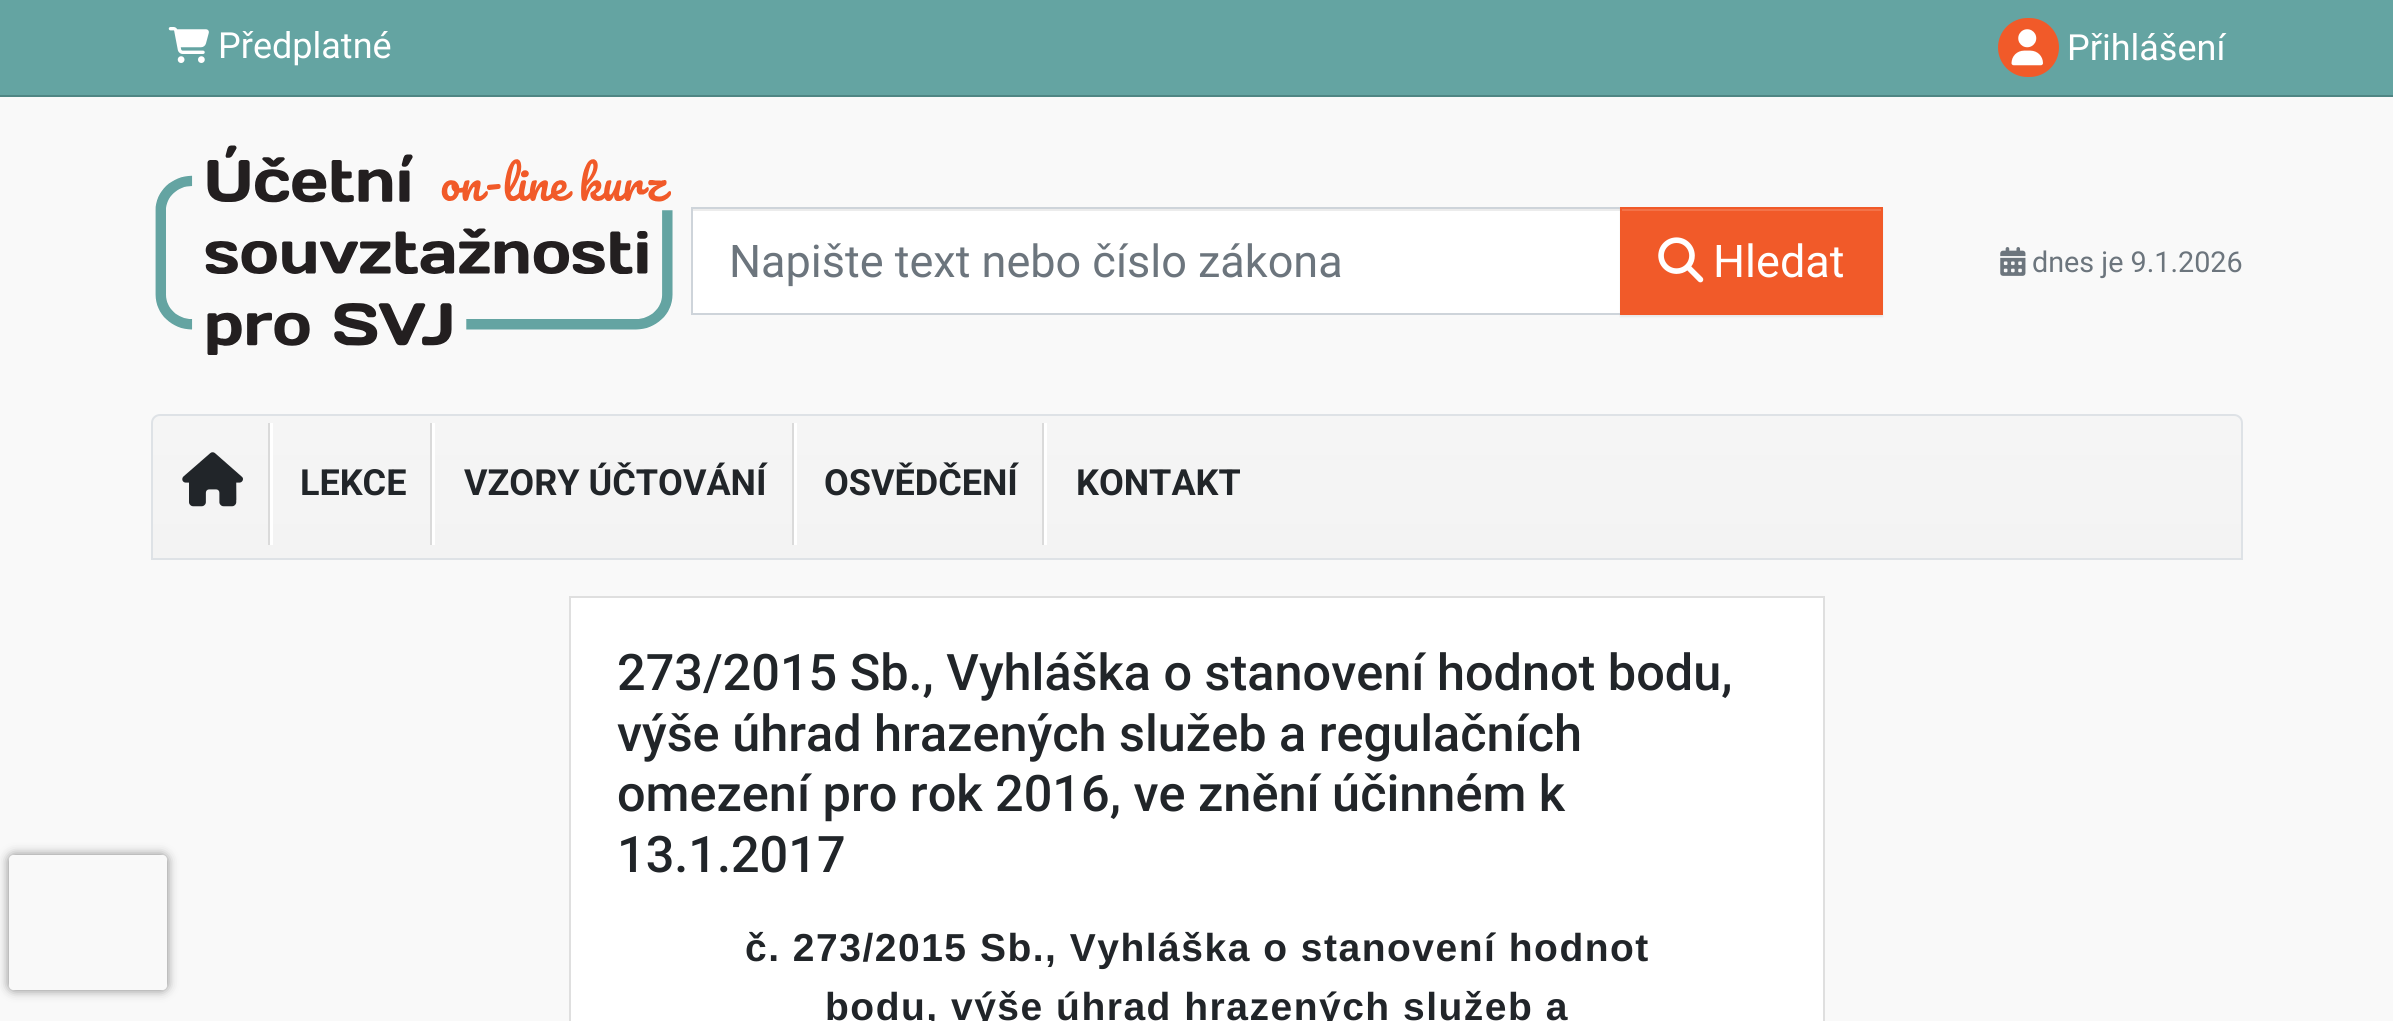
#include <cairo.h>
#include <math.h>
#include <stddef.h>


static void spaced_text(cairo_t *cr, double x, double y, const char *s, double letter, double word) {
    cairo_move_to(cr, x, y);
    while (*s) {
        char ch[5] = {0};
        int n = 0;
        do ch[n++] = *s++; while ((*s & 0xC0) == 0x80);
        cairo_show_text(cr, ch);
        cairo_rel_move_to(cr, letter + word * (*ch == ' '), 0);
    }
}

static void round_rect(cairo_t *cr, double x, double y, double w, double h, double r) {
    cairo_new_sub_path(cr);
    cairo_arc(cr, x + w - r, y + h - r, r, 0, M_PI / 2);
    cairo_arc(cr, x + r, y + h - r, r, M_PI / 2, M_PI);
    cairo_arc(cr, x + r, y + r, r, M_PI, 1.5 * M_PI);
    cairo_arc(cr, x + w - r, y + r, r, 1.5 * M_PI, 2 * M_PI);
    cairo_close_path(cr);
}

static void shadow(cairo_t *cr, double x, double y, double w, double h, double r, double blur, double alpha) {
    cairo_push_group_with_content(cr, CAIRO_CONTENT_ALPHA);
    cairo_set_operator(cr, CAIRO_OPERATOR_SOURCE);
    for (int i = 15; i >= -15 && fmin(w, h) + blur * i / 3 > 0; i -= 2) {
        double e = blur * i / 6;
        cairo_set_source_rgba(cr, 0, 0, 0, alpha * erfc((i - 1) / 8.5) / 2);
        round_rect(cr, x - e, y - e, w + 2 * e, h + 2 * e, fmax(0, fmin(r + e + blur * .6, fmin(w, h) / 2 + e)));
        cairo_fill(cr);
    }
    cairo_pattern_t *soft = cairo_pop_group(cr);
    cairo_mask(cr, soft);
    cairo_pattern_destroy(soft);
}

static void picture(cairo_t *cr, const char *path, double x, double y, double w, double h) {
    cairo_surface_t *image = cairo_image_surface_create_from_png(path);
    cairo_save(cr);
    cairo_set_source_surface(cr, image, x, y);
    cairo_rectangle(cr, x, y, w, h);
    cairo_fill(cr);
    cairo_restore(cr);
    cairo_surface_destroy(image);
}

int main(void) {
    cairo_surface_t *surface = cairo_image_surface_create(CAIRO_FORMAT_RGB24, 2393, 1021);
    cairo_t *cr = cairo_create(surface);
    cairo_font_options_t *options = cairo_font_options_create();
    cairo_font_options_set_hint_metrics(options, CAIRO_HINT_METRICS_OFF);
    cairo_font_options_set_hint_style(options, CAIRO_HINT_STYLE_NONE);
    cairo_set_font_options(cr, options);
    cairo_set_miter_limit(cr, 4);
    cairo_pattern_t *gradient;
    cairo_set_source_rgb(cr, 0.973, 0.973, 0.973);
    cairo_paint(cr);
    cairo_save(cr);
    cairo_set_fill_rule(cr, CAIRO_FILL_RULE_EVEN_ODD);
    cairo_new_path(cr);
    cairo_move_to(cr, 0, 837);
    cairo_line_to(cr, 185, 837);
    cairo_line_to(cr, 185, 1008);
    cairo_line_to(cr, 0, 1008);
    cairo_close_path(cr);
    cairo_move_to(cr, 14, 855);
    cairo_line_to(cr, 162, 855);
    cairo_curve_to(cr, 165, 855, 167, 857, 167, 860);
    cairo_line_to(cr, 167, 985);
    cairo_curve_to(cr, 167, 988, 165, 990, 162, 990);
    cairo_line_to(cr, 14, 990);
    cairo_curve_to(cr, 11, 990, 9, 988, 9, 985);
    cairo_line_to(cr, 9, 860);
    cairo_curve_to(cr, 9, 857, 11, 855, 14, 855);
    cairo_close_path(cr);
    cairo_clip(cr);
    cairo_set_source_rgb(cr, 0.502, 0.502, 0.502);
    shadow(cr, 9, 855, 158, 135, 5, 5.5, 1);
    cairo_restore(cr);
    cairo_set_source_rgb(cr, 0.392, 0.643, 0.635);
    cairo_rectangle(cr, 0, 0, 2393, 95);
    cairo_fill(cr);
    cairo_set_source_rgb(cr, 0.31, 0.525, 0.518);
    cairo_rectangle(cr, 0, 95, 2393, 2);
    cairo_fill(cr);
    picture(cr, "img1.png", 168, 27, 41, 36);
    cairo_select_font_face(cr, "Roboto", CAIRO_FONT_SLANT_NORMAL, CAIRO_FONT_WEIGHT_NORMAL);
    cairo_set_font_size(cr, 36);
    cairo_set_source_rgb(cr, 1, 1, 1);
    cairo_move_to(cr, 218, 58);
    cairo_show_text(cr, "Předplatné");
    cairo_set_source_rgb(cr, 0.945, 0.353, 0.161);
    round_rect(cr, 1998, 18, 61, 59, 29.5);
    cairo_fill(cr);
    picture(cr, "img2.png", 2011, 29, 32, 37);
    cairo_set_source_rgb(cr, 1, 1, 1);
    cairo_move_to(cr, 2067, 60);
    cairo_show_text(cr, "Přihlášení");
    picture(cr, "img3.png", 155, 145, 518, 210);
    cairo_rectangle(cr, 693, 211, 927, 102);
    cairo_fill(cr);
    cairo_set_source_rgb(cr, 0.925, 0.925, 0.925);
    cairo_rectangle(cr, 693, 209, 927, 2);
    cairo_fill(cr);
    cairo_rectangle(cr, 692, 208, 929, 106);
    cairo_set_source_rgb(cr, 0.808, 0.831, 0.855);
    cairo_stroke(cr);
    cairo_set_font_size(cr, 45);
    cairo_set_source_rgb(cr, 0.424, 0.459, 0.49);
    cairo_move_to(cr, 729, 277);
    cairo_show_text(cr, "Napište text nebo číslo zákona");
    cairo_set_source_rgb(cr, 0, 0, 0);
    shadow(cr, 1620, 209, 263, 108, 0, 1, 0.07);
    cairo_set_source_rgb(cr, 0.945, 0.353, 0.161);
    cairo_rectangle(cr, 1620, 207, 263, 108);
    cairo_fill(cr);
    cairo_set_source_rgb(cr, 0.953, 0.451, 0.286);
    cairo_rectangle(cr, 1622, 209, 259, 2);
    cairo_fill(cr);
    picture(cr, "img4.png", 1658, 237, 46, 46);
    cairo_set_source_rgb(cr, 1, 1, 1);
    cairo_move_to(cr, 1713, 277);
    cairo_show_text(cr, "Hledat");
    picture(cr, "img5.png", 2000, 247, 26, 29);
    cairo_set_font_size(cr, 28.75);
    cairo_set_source_rgb(cr, 0.424, 0.459, 0.49);
    cairo_move_to(cr, 2032, 272);
    cairo_show_text(cr, "dnes je 9.1.2026");
    cairo_save(cr);
    cairo_new_path(cr);
    cairo_move_to(cr, 160, 414);
    cairo_line_to(cr, 2234, 414);
    cairo_curve_to(cr, 2239, 414, 2243, 418, 2243, 423);
    cairo_line_to(cr, 2243, 560);
    cairo_line_to(cr, 151, 560);
    cairo_line_to(cr, 151, 423);
    cairo_curve_to(cr, 151, 418, 155, 414, 160, 414);
    cairo_close_path(cr);
    cairo_clip(cr);
    gradient = cairo_pattern_create_linear(1197, 416, 1197, 558);
    cairo_pattern_add_color_stop_rgba(gradient, 0, 0.961, 0.961, 0.961, 1);
    cairo_pattern_add_color_stop_rgba(gradient, 1, 0.953, 0.953, 0.953, 1);
    cairo_set_source(cr, gradient);
    cairo_pattern_destroy(gradient);
    cairo_rectangle(cr, 151, 416, 2092, 142);
    cairo_fill(cr);
    cairo_restore(cr);
    cairo_new_path(cr);
    cairo_move_to(cr, 160, 415);
    cairo_line_to(cr, 2234, 415);
    cairo_curve_to(cr, 2238.5, 415, 2242, 418.5, 2242, 423);
    cairo_line_to(cr, 2242, 559);
    cairo_line_to(cr, 152, 559);
    cairo_line_to(cr, 152, 423);
    cairo_curve_to(cr, 152, 418.5, 155.5, 415, 160, 415);
    cairo_close_path(cr);
    cairo_set_source_rgb(cr, 0.871, 0.886, 0.902);
    cairo_stroke(cr);
    picture(cr, "img6.png", 182, 452, 61, 55);
    cairo_set_source_rgb(cr, 1, 1, 1);
    cairo_rectangle(cr, 270, 423, 3, 122);
    cairo_fill(cr);
    cairo_set_source_rgb(cr, 0.855, 0.855, 0.855);
    cairo_rectangle(cr, 268, 423, 2, 122);
    cairo_fill(cr);
    cairo_select_font_face(cr, "Roboto", CAIRO_FONT_SLANT_NORMAL, CAIRO_FONT_WEIGHT_BOLD);
    cairo_set_font_size(cr, 36);
    cairo_set_source_rgb(cr, 0.129, 0.145, 0.161);
    cairo_move_to(cr, 300, 495);
    cairo_show_text(cr, "LEKCE");
    cairo_set_source_rgb(cr, 1, 1, 1);
    cairo_rectangle(cr, 432, 423, 3, 122);
    cairo_fill(cr);
    cairo_set_source_rgb(cr, 0.855, 0.855, 0.855);
    cairo_rectangle(cr, 430, 423, 2, 122);
    cairo_fill(cr);
    cairo_set_source_rgb(cr, 0.129, 0.145, 0.161);
    cairo_move_to(cr, 464, 495);
    cairo_show_text(cr, "VZORY ÚČTOVÁNÍ");
    cairo_set_source_rgb(cr, 1, 1, 1);
    cairo_rectangle(cr, 794, 423, 3, 122);
    cairo_fill(cr);
    cairo_set_source_rgb(cr, 0.855, 0.855, 0.855);
    cairo_rectangle(cr, 792, 423, 2, 122);
    cairo_fill(cr);
    cairo_set_source_rgb(cr, 0.129, 0.145, 0.161);
    cairo_move_to(cr, 824, 495);
    cairo_show_text(cr, "OSVĚDČENÍ");
    cairo_set_source_rgb(cr, 1, 1, 1);
    cairo_rectangle(cr, 1044, 423, 3, 122);
    cairo_fill(cr);
    cairo_set_source_rgb(cr, 0.855, 0.855, 0.855);
    cairo_rectangle(cr, 1042, 423, 2, 122);
    cairo_fill(cr);
    cairo_set_source_rgb(cr, 0.129, 0.145, 0.161);
    cairo_move_to(cr, 1076, 495);
    cairo_show_text(cr, "KONTAKT");
    cairo_set_source_rgb(cr, 1, 1, 1);
    cairo_rectangle(cr, 570, 597, 1254, 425);
    cairo_fill_preserve(cr);
    cairo_set_source_rgb(cr, 0.875, 0.875, 0.875);
    cairo_stroke(cr);
    cairo_select_font_face(cr, "Roboto Medium", CAIRO_FONT_SLANT_NORMAL, CAIRO_FONT_WEIGHT_NORMAL);
    cairo_set_font_size(cr, 50.4);
    cairo_set_source_rgb(cr, 0.129, 0.145, 0.161);
    cairo_move_to(cr, 617, 690);
    cairo_show_text(cr, "273/2015 Sb., Vyhláška o stanovení hodnot bodu,");
    cairo_move_to(cr, 617, 751);
    cairo_show_text(cr, "výše úhrad hrazených služeb a regulačních");
    cairo_move_to(cr, 617, 811);
    cairo_show_text(cr, "omezení pro rok 2016, ve znění účinném k");
    cairo_move_to(cr, 617, 872);
    cairo_show_text(cr, "13.1.2017");
    cairo_select_font_face(cr, "Liberation Sans", CAIRO_FONT_SLANT_NORMAL, CAIRO_FONT_WEIGHT_BOLD);
    cairo_set_font_size(cr, 39);
    spaced_text(cr, 745, 961, "č. 273/2015 Sb., Vyhláška o stanovení hodnot", 1.5, 0);
    spaced_text(cr, 825, 1020, "bodu, výše úhrad hrazených služeb a", 1.5, 0);
    cairo_surface_write_to_png(surface, "page.png");
    cairo_font_options_destroy(options);
    cairo_destroy(cr);
    cairo_surface_destroy(surface);
    return 0;
}
